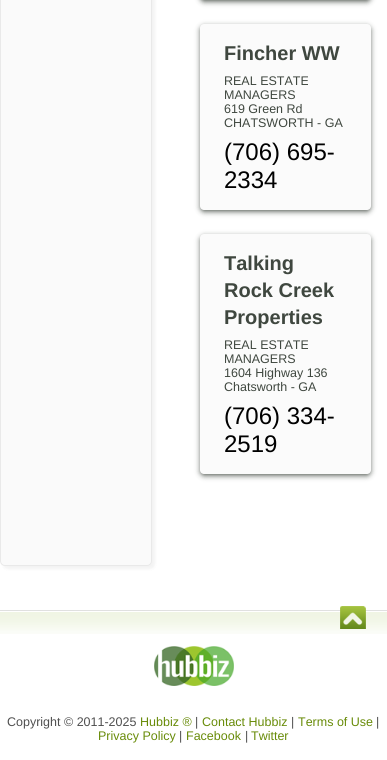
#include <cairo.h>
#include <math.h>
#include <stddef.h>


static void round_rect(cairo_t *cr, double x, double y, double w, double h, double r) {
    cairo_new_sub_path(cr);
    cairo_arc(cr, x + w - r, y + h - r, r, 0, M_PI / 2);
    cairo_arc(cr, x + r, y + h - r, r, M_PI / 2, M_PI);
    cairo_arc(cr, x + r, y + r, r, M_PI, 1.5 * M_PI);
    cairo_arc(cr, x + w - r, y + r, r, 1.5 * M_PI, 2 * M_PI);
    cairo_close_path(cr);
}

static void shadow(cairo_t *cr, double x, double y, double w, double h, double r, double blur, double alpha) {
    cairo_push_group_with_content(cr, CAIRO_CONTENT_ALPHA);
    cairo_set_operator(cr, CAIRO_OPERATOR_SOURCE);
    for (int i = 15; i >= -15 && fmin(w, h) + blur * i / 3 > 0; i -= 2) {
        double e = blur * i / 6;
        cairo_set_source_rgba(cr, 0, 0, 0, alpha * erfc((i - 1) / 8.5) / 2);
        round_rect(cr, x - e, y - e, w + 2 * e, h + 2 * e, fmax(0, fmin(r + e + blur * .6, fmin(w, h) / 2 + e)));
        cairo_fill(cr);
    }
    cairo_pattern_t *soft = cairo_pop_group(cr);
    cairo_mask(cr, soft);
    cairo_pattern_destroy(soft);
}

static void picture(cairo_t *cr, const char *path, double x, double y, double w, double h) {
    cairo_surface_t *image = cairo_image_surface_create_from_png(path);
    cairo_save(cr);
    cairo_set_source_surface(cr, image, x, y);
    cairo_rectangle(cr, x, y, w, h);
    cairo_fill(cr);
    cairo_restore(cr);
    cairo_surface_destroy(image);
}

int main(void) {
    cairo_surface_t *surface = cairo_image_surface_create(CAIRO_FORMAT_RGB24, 387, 760);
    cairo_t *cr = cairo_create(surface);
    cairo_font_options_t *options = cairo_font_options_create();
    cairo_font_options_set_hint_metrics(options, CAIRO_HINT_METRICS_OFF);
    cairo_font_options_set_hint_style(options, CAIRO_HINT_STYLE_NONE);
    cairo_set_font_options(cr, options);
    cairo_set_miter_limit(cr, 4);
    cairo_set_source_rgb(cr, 1, 1, 1);
    cairo_paint(cr);
    cairo_set_source_rgb(cr, 0, 0, 0);
    shadow(cr, 3, -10, 152, 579, 5, 1.5, 0.05);
    cairo_set_source_rgb(cr, 0.98, 0.98, 0.98);
    round_rect(cr, 0.5, -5.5, 151, 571, 4.5);
    cairo_fill_preserve(cr);
    cairo_set_source_rgb(cr, 0.914, 0.914, 0.914);
    cairo_set_line_width(cr, 1);
    cairo_stroke(cr);
    cairo_set_source_rgb(cr, 0.247, 0.278, 0.247);
    shadow(cr, 201, -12, 169, 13, 3, 3, 1);
    shadow(cr, 201, 27, 169, 184, 3, 3, 1);
    cairo_set_source_rgb(cr, 0.984, 0.984, 0.984);
    round_rect(cr, 200, 24, 171, 186, 4);
    cairo_fill(cr);
    cairo_select_font_face(cr, "Liberation Sans", CAIRO_FONT_SLANT_NORMAL, CAIRO_FONT_WEIGHT_BOLD);
    cairo_set_font_size(cr, 20);
    cairo_set_source_rgb(cr, 0.247, 0.278, 0.247);
    cairo_move_to(cr, 224, 60);
    cairo_show_text(cr, "Fincher WW");
    cairo_select_font_face(cr, "Liberation Sans", CAIRO_FONT_SLANT_NORMAL, CAIRO_FONT_WEIGHT_NORMAL);
    cairo_set_font_size(cr, 12.5);
    cairo_move_to(cr, 224, 85);
    cairo_show_text(cr, "REAL ESTATE");
    cairo_move_to(cr, 224, 99);
    cairo_show_text(cr, "MANAGERS");
    cairo_move_to(cr, 224, 113);
    cairo_show_text(cr, "619 Green Rd");
    cairo_move_to(cr, 224, 127);
    cairo_show_text(cr, "CHATSWORTH - GA");
    cairo_set_font_size(cr, 24);
    cairo_set_source_rgb(cr, 0, 0, 0);
    cairo_move_to(cr, 224, 160);
    cairo_show_text(cr, "(706) 695-");
    cairo_move_to(cr, 224, 188);
    cairo_show_text(cr, "2334");
    cairo_set_source_rgb(cr, 0.247, 0.278, 0.247);
    shadow(cr, 201, 237, 169, 238, 3, 3, 1);
    cairo_set_source_rgb(cr, 0.984, 0.984, 0.984);
    round_rect(cr, 200, 234, 171, 240, 4);
    cairo_fill(cr);
    cairo_select_font_face(cr, "Liberation Sans", CAIRO_FONT_SLANT_NORMAL, CAIRO_FONT_WEIGHT_BOLD);
    cairo_set_font_size(cr, 20);
    cairo_set_source_rgb(cr, 0.247, 0.278, 0.247);
    cairo_move_to(cr, 224, 270);
    cairo_show_text(cr, "Talking");
    cairo_move_to(cr, 224, 297);
    cairo_show_text(cr, "Rock Creek");
    cairo_move_to(cr, 224, 324);
    cairo_show_text(cr, "Properties");
    cairo_select_font_face(cr, "Liberation Sans", CAIRO_FONT_SLANT_NORMAL, CAIRO_FONT_WEIGHT_NORMAL);
    cairo_set_font_size(cr, 12.5);
    cairo_move_to(cr, 224, 349);
    cairo_show_text(cr, "REAL ESTATE");
    cairo_move_to(cr, 224, 363);
    cairo_show_text(cr, "MANAGERS");
    cairo_move_to(cr, 224, 377);
    cairo_show_text(cr, "1604 Highway 136");
    cairo_move_to(cr, 224, 391);
    cairo_show_text(cr, "Chatsworth - GA");
    cairo_set_font_size(cr, 24);
    cairo_set_source_rgb(cr, 0, 0, 0);
    cairo_move_to(cr, 224, 424);
    cairo_show_text(cr, "(706) 334-");
    cairo_move_to(cr, 224, 452);
    cairo_show_text(cr, "2519");
    picture(cr, "img1.png", 0, 610, 387, 24);
    picture(cr, "img2.png", 340, 606, 26, 23);
    picture(cr, "img3.png", 154, 646, 80, 40);
    cairo_set_font_size(cr, 12.5);
    cairo_set_source_rgb(cr, 0.31, 0.31, 0.31);
    cairo_move_to(cr, 7, 726);
    cairo_show_text(cr, "Copyright © 2011-2025");
    cairo_set_source_rgb(cr, 0.408, 0.545, 0.035);
    cairo_move_to(cr, 140, 726);
    cairo_show_text(cr, "Hubbiz ®");
    cairo_set_source_rgb(cr, 0.31, 0.31, 0.31);
    cairo_move_to(cr, 195, 726);
    cairo_show_text(cr, "|");
    cairo_set_source_rgb(cr, 0.408, 0.545, 0.035);
    cairo_move_to(cr, 202, 726);
    cairo_show_text(cr, "Contact Hubbiz");
    cairo_set_source_rgb(cr, 0.31, 0.31, 0.31);
    cairo_move_to(cr, 291, 726);
    cairo_show_text(cr, "|");
    cairo_set_source_rgb(cr, 0.408, 0.545, 0.035);
    cairo_move_to(cr, 298, 726);
    cairo_show_text(cr, "Terms of Use");
    cairo_set_source_rgb(cr, 0.31, 0.31, 0.31);
    cairo_move_to(cr, 376, 726);
    cairo_show_text(cr, "|");
    cairo_set_source_rgb(cr, 0.408, 0.545, 0.035);
    cairo_move_to(cr, 98, 740);
    cairo_show_text(cr, "Privacy Policy");
    cairo_set_source_rgb(cr, 0.31, 0.31, 0.31);
    cairo_move_to(cr, 179, 740);
    cairo_show_text(cr, "|");
    cairo_set_source_rgb(cr, 0.408, 0.545, 0.035);
    cairo_move_to(cr, 186, 740);
    cairo_show_text(cr, "Facebook");
    cairo_set_source_rgb(cr, 0.31, 0.31, 0.31);
    cairo_move_to(cr, 245, 740);
    cairo_show_text(cr, "|");
    cairo_set_source_rgb(cr, 0.408, 0.545, 0.035);
    cairo_move_to(cr, 251, 740);
    cairo_show_text(cr, "Twitter");
    cairo_surface_write_to_png(surface, "page.png");
    cairo_font_options_destroy(options);
    cairo_destroy(cr);
    cairo_surface_destroy(surface);
    return 0;
}
